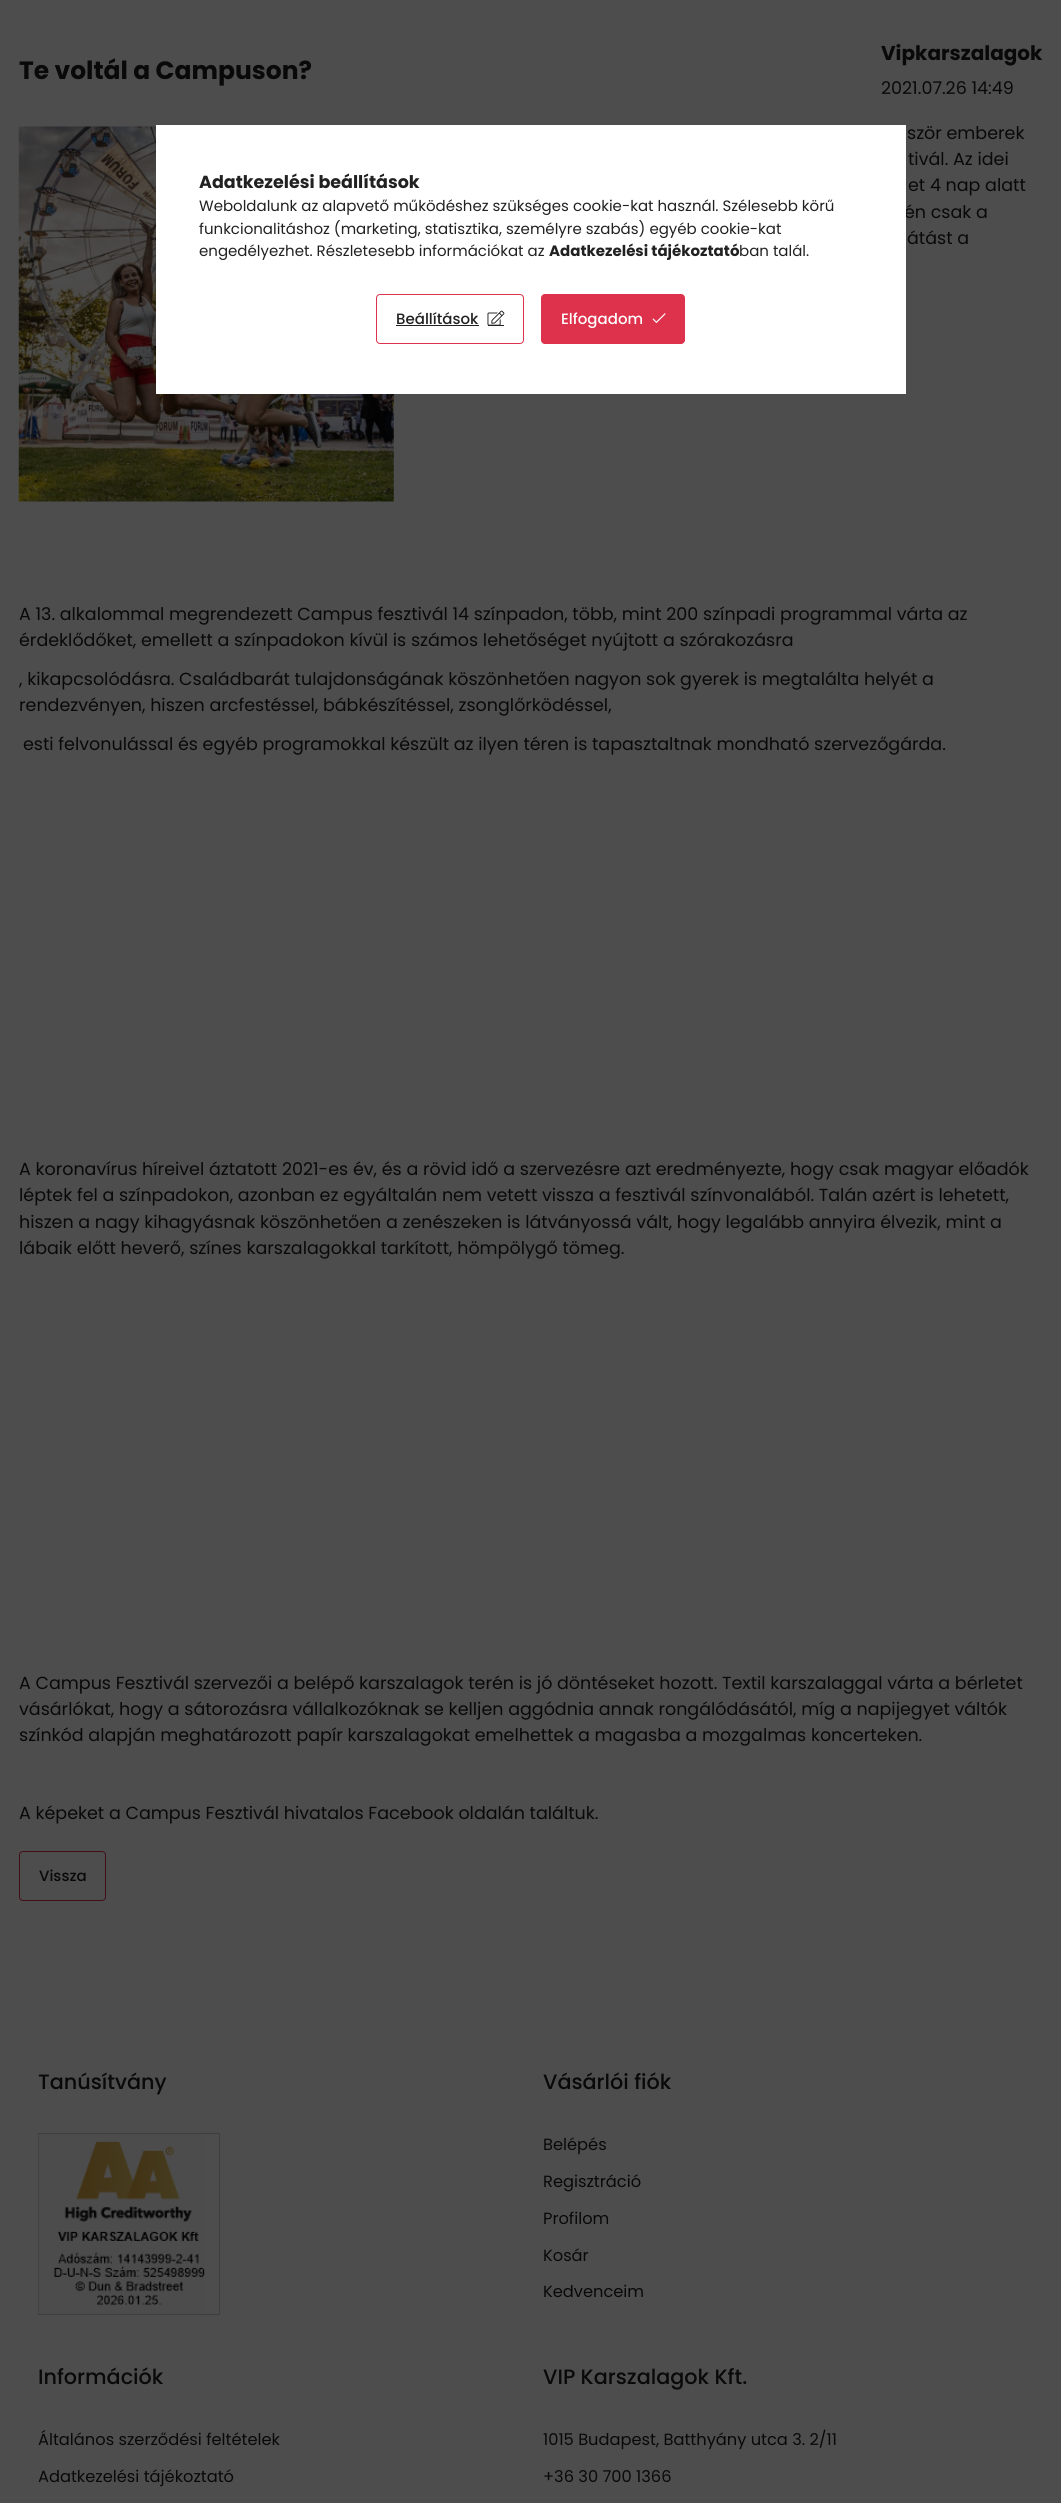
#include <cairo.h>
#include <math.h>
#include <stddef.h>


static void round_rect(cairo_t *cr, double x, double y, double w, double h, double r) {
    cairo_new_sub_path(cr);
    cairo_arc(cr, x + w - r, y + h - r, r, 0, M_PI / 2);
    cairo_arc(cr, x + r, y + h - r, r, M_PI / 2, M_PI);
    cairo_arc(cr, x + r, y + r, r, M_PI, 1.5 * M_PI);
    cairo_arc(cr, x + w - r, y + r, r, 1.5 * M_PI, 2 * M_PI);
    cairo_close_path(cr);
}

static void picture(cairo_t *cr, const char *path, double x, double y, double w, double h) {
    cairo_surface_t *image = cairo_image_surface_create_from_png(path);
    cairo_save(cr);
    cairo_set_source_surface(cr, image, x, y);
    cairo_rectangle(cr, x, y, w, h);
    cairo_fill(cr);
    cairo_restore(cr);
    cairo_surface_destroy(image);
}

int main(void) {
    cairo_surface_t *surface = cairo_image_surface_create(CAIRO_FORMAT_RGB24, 1061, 2503);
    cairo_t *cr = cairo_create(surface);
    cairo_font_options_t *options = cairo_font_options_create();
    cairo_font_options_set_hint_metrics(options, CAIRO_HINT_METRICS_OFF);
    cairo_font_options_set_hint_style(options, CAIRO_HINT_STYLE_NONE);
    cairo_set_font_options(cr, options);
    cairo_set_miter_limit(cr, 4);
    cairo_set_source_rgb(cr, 0.302, 0.302, 0.302);
    cairo_paint(cr);
    cairo_select_font_face(cr, "Poppins", CAIRO_FONT_SLANT_NORMAL, CAIRO_FONT_WEIGHT_BOLD);
    cairo_set_font_size(cr, 25);
    cairo_set_source_rgb(cr, 0.039, 0.039, 0.039);
    cairo_move_to(cr, 19, 79);
    cairo_show_text(cr, "Te voltál a Campuson?");
    cairo_set_font_size(cr, 20);
    cairo_move_to(cr, 881, 60);
    cairo_show_text(cr, "Vipkarszalagok");
    cairo_select_font_face(cr, "Poppins", CAIRO_FONT_SLANT_NORMAL, CAIRO_FONT_WEIGHT_NORMAL);
    cairo_set_font_size(cr, 17.5);
    cairo_move_to(cr, 881, 94);
    cairo_show_text(cr, "2021.07.26 14:49");
    picture(cr, "img1.png", 18, 126, 376, 376);
    cairo_move_to(cr, 907, 139);
    cairo_show_text(cr, "ször emberek");
    cairo_move_to(cr, 908, 165);
    cairo_show_text(cr, "tivál. Az idei");
    cairo_move_to(cr, 908, 191);
    cairo_show_text(cr, "et 4 nap alatt");
    cairo_move_to(cr, 904, 218);
    cairo_show_text(cr, "én csak a");
    cairo_move_to(cr, 907, 244);
    cairo_show_text(cr, "átást a");
    cairo_move_to(cr, 19, 620);
    cairo_show_text(cr, "A 13. alkalommal megrendezett Campus fesztivál 14 színpadon, több, mint 200 színpadi programmal várta az");
    cairo_move_to(cr, 19, 646);
    cairo_show_text(cr, "érdeklődőket, emellett a színpadokon kívül is számos lehetőséget nyújtott a szórakozásra");
    cairo_move_to(cr, 19, 685);
    cairo_show_text(cr, ", kikapcsolódásra. Családbarát tulajdonságának köszönhetően nagyon sok gyerek is megtalálta helyét a");
    cairo_move_to(cr, 19, 711);
    cairo_show_text(cr, "rendezvényen, hiszen arcfestéssel, bábkészítéssel, zsonglőrködéssel,");
    cairo_move_to(cr, 23, 750);
    cairo_show_text(cr, "esti felvonulással és egyéb programokkal készült az ilyen téren is tapasztaltnak mondható szervezőgárda.");
    cairo_move_to(cr, 19, 1175);
    cairo_show_text(cr, "A koronavírus híreivel áztatott 2021-es év, és a rövid idő a szervezésre azt eredményezte, hogy csak magyar előadók");
    cairo_move_to(cr, 19, 1201);
    cairo_show_text(cr, "léptek fel a színpadokon, azonban ez egyáltalán nem vetett vissza a fesztivál színvonalából. Talán azért is lehetett,");
    cairo_move_to(cr, 19, 1228);
    cairo_show_text(cr, "hiszen a nagy kihagyásnak köszönhetően a zenészeken is látványossá vált, hogy legalább annyira élvezik, mint a");
    cairo_move_to(cr, 19, 1254);
    cairo_show_text(cr, "lábaik előtt heverő, színes karszalagokkal tarkított, hömpölygő tömeg.");
    cairo_move_to(cr, 19, 1689);
    cairo_show_text(cr, "A Campus Fesztivál szervezői a belépő karszalagok terén is jó döntéseket hozott. Textil karszalaggal várta a bérletet");
    cairo_move_to(cr, 19, 1715);
    cairo_show_text(cr, "vásárlókat, hogy a sátorozásra vállalkozóknak se kelljen aggódnia annak rongálódásától, míg a napijegyet váltók");
    cairo_move_to(cr, 19, 1741);
    cairo_show_text(cr, "színkód alapján meghatározott papír karszalagokat emelhettek a magasba a mozgalmas koncerteken.");
    cairo_move_to(cr, 19, 1819);
    cairo_show_text(cr, "A képeket a Campus Fesztivál hivatalos Facebook oldalán találtuk.");
    round_rect(cr, 19.5, 1851.5, 86, 49, 3.5);
    cairo_set_source_rgb(cr, 0.263, 0.059, 0.09);
    cairo_set_line_width(cr, 1);
    cairo_stroke(cr);
    cairo_select_font_face(cr, "Poppins Medium", CAIRO_FONT_SLANT_NORMAL, CAIRO_FONT_WEIGHT_NORMAL);
    cairo_set_font_size(cr, 15);
    cairo_set_source_rgb(cr, 0.039, 0.039, 0.039);
    cairo_move_to(cr, 39, 1881);
    cairo_show_text(cr, "Vissza");
    cairo_set_font_size(cr, 20.75);
    cairo_move_to(cr, 38, 2089);
    cairo_show_text(cr, "Tanúsítvány");
    cairo_rectangle(cr, 38.5, 2133.5, 181, 181);
    cairo_set_source_rgb(cr, 0.239, 0.239, 0.239);
    cairo_stroke(cr);
    picture(cr, "img2.png", 38, 2134, 167, 180);
    cairo_set_source_rgb(cr, 0.039, 0.039, 0.039);
    cairo_move_to(cr, 543, 2089);
    cairo_show_text(cr, "Vásárlói fiók");
    cairo_select_font_face(cr, "Poppins", CAIRO_FONT_SLANT_NORMAL, CAIRO_FONT_WEIGHT_NORMAL);
    cairo_set_font_size(cr, 16.25);
    cairo_move_to(cr, 543, 2150);
    cairo_show_text(cr, "Belépés");
    cairo_move_to(cr, 543, 2187);
    cairo_show_text(cr, "Regisztráció");
    cairo_move_to(cr, 543, 2224);
    cairo_show_text(cr, "Profilom");
    cairo_move_to(cr, 543, 2261);
    cairo_show_text(cr, "Kosár");
    cairo_move_to(cr, 543, 2297);
    cairo_show_text(cr, "Kedvenceim");
    cairo_select_font_face(cr, "Poppins Medium", CAIRO_FONT_SLANT_NORMAL, CAIRO_FONT_WEIGHT_NORMAL);
    cairo_set_font_size(cr, 20.75);
    cairo_move_to(cr, 38, 2384);
    cairo_show_text(cr, "Információk");
    cairo_select_font_face(cr, "Poppins", CAIRO_FONT_SLANT_NORMAL, CAIRO_FONT_WEIGHT_NORMAL);
    cairo_set_font_size(cr, 16.25);
    cairo_move_to(cr, 38, 2445);
    cairo_show_text(cr, "Általános szerződési feltételek");
    cairo_move_to(cr, 38, 2482);
    cairo_show_text(cr, "Adatkezelési tájékoztató");
    cairo_select_font_face(cr, "Poppins Medium", CAIRO_FONT_SLANT_NORMAL, CAIRO_FONT_WEIGHT_NORMAL);
    cairo_set_font_size(cr, 20.75);
    cairo_move_to(cr, 543, 2384);
    cairo_show_text(cr, "VIP Karszalagok Kft.");
    cairo_select_font_face(cr, "Poppins", CAIRO_FONT_SLANT_NORMAL, CAIRO_FONT_WEIGHT_NORMAL);
    cairo_set_font_size(cr, 16.25);
    cairo_move_to(cr, 543, 2445);
    cairo_show_text(cr, "1015 Budapest, Batthyány utca 3. 2/11");
    cairo_move_to(cr, 543, 2482);
    cairo_show_text(cr, "+36 30 700 1366");
    cairo_set_source_rgb(cr, 1, 1, 1);
    cairo_rectangle(cr, 156, 125, 750, 269);
    cairo_fill(cr);
    cairo_select_font_face(cr, "Poppins", CAIRO_FONT_SLANT_NORMAL, CAIRO_FONT_WEIGHT_BOLD);
    cairo_set_font_size(cr, 17.5);
    cairo_set_source_rgb(cr, 0.129, 0.129, 0.129);
    cairo_move_to(cr, 199, 188);
    cairo_show_text(cr, "Adatkezelési beállítások");
    cairo_select_font_face(cr, "Poppins", CAIRO_FONT_SLANT_NORMAL, CAIRO_FONT_WEIGHT_NORMAL);
    cairo_set_font_size(cr, 15);
    cairo_move_to(cr, 199, 211);
    cairo_show_text(cr, "Weboldalunk az alapvető működéshez szükséges cookie-kat használ. Szélesebb körű");
    cairo_move_to(cr, 199, 234);
    cairo_show_text(cr, "funkcionalitáshoz (marketing, statisztika, személyre szabás) egyéb cookie-kat");
    cairo_move_to(cr, 199, 256);
    cairo_show_text(cr, "engedélyezhet. Részletesebb információkat az");
    cairo_select_font_face(cr, "Poppins", CAIRO_FONT_SLANT_NORMAL, CAIRO_FONT_WEIGHT_BOLD);
    cairo_move_to(cr, 549, 256);
    cairo_show_text(cr, "Adatkezelési tájékoztató");
    cairo_select_font_face(cr, "Poppins", CAIRO_FONT_SLANT_NORMAL, CAIRO_FONT_WEIGHT_NORMAL);
    cairo_move_to(cr, 739, 256);
    cairo_show_text(cr, "ban talál.");
    round_rect(cr, 376.5, 294.5, 147, 49, 3.5);
    cairo_set_source_rgb(cr, 0.871, 0.192, 0.294);
    cairo_stroke(cr);
    cairo_select_font_face(cr, "Poppins Medium", CAIRO_FONT_SLANT_NORMAL, CAIRO_FONT_WEIGHT_NORMAL);
    cairo_set_source_rgb(cr, 0.129, 0.129, 0.129);
    cairo_move_to(cr, 396, 324);
    cairo_show_text(cr, "Beállítások");
    cairo_rectangle(cr, 396, 325, 83, 1);
    cairo_fill(cr);
    cairo_rectangle(cr, 488, 325, 16, 1);
    cairo_fill(cr);
    picture(cr, "img3.png", 487, 310, 18, 16);
    cairo_set_source_rgb(cr, 0.871, 0.192, 0.294);
    round_rect(cr, 541.5, 294.5, 143, 49, 3.5);
    cairo_fill_preserve(cr);
    cairo_stroke(cr);
    cairo_set_source_rgb(cr, 1, 1, 1);
    cairo_move_to(cr, 561, 324);
    cairo_show_text(cr, "Elfogadom");
    picture(cr, "img4.png", 652, 313, 14, 10);
    cairo_surface_write_to_png(surface, "page.png");
    cairo_font_options_destroy(options);
    cairo_destroy(cr);
    cairo_surface_destroy(surface);
    return 0;
}
